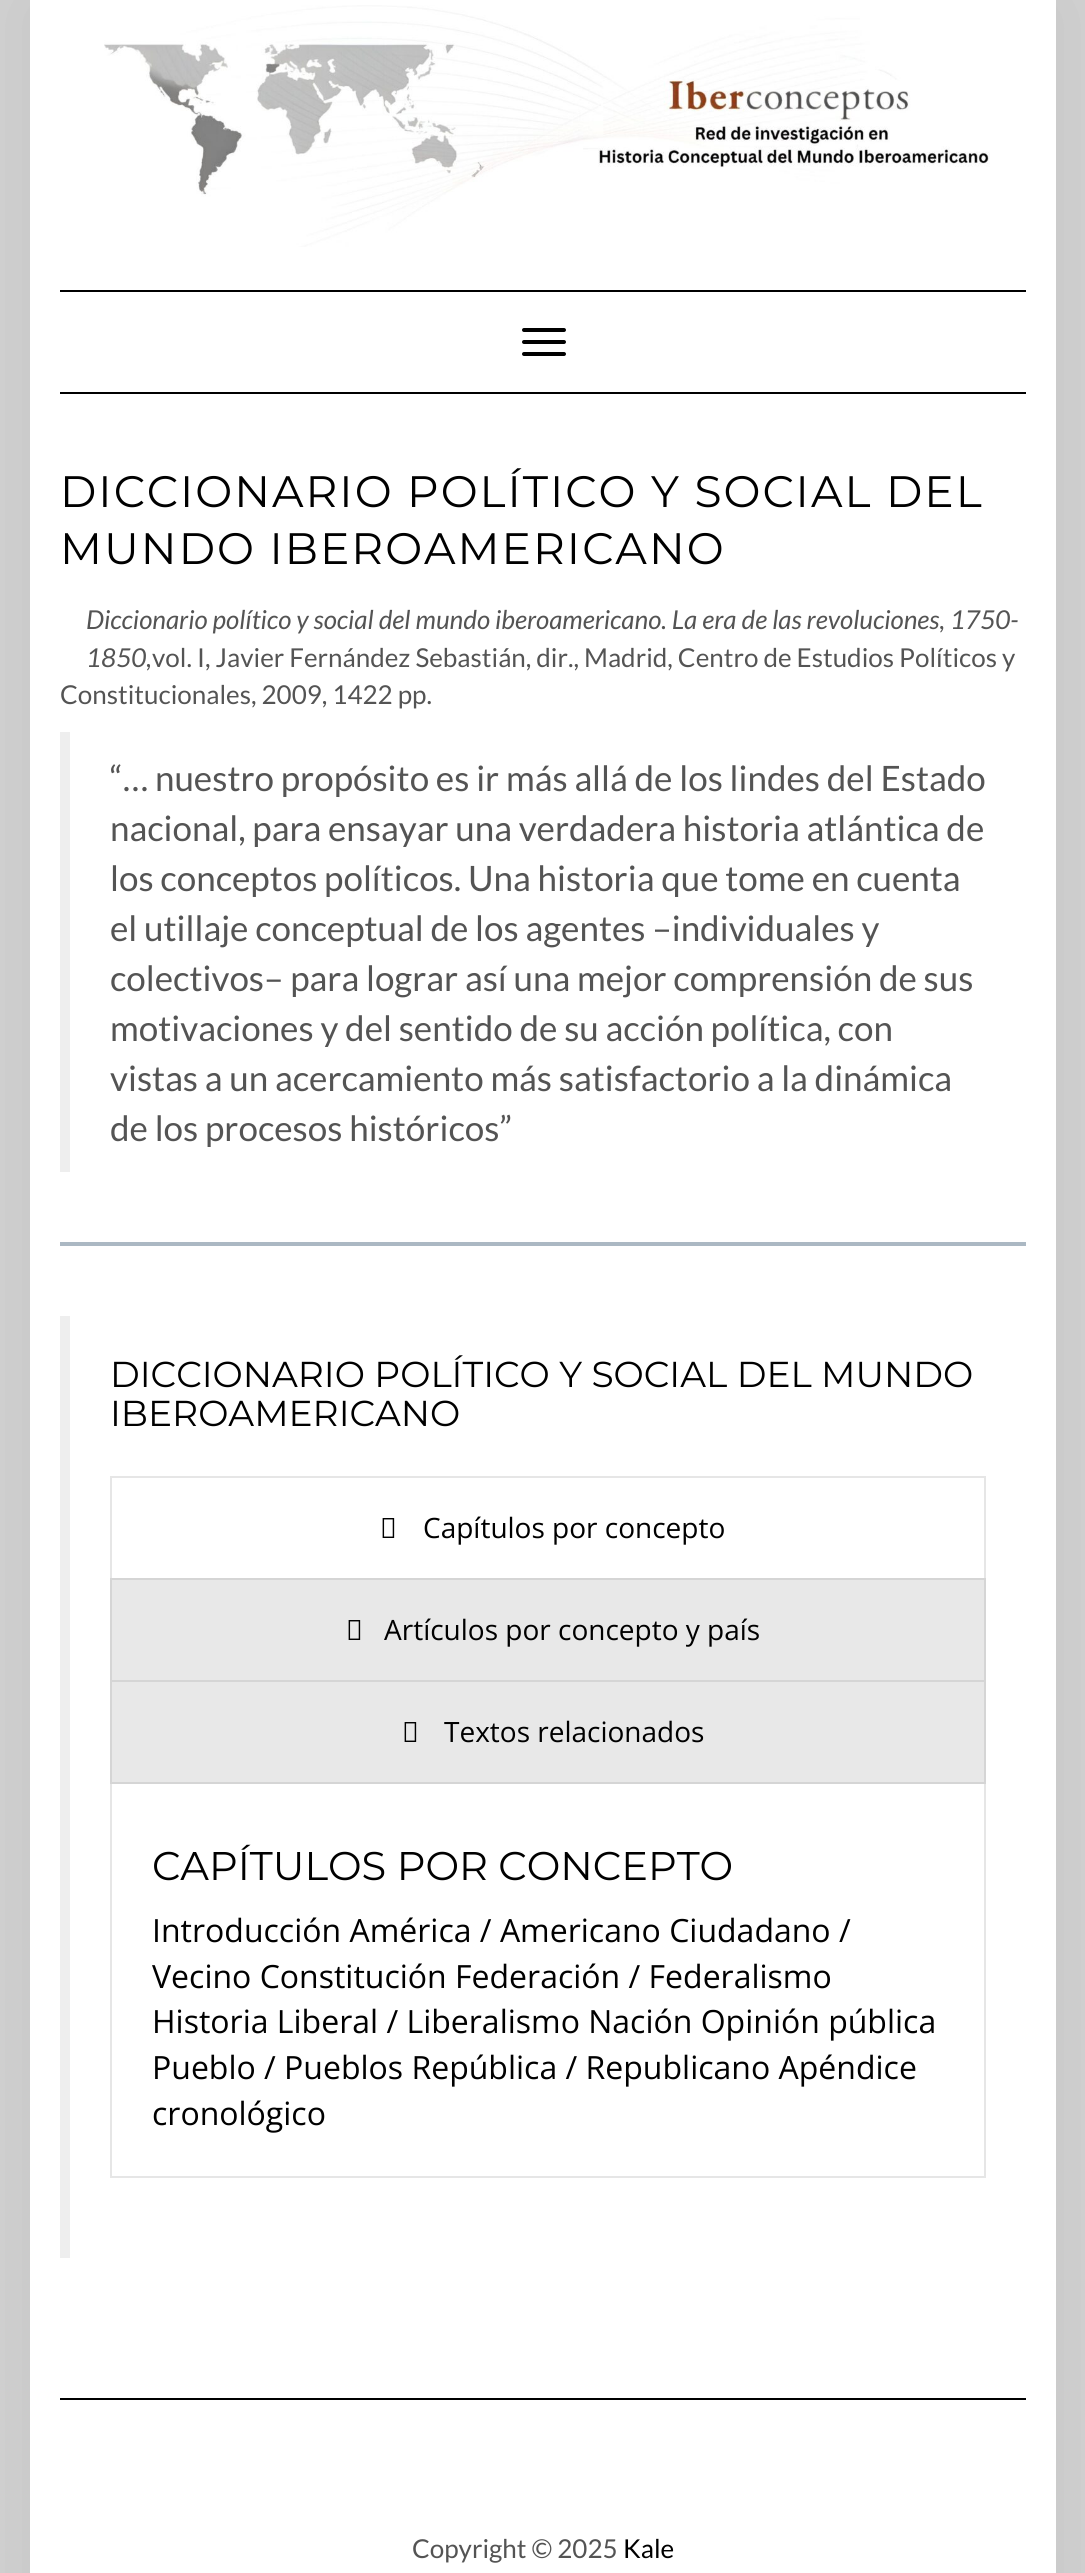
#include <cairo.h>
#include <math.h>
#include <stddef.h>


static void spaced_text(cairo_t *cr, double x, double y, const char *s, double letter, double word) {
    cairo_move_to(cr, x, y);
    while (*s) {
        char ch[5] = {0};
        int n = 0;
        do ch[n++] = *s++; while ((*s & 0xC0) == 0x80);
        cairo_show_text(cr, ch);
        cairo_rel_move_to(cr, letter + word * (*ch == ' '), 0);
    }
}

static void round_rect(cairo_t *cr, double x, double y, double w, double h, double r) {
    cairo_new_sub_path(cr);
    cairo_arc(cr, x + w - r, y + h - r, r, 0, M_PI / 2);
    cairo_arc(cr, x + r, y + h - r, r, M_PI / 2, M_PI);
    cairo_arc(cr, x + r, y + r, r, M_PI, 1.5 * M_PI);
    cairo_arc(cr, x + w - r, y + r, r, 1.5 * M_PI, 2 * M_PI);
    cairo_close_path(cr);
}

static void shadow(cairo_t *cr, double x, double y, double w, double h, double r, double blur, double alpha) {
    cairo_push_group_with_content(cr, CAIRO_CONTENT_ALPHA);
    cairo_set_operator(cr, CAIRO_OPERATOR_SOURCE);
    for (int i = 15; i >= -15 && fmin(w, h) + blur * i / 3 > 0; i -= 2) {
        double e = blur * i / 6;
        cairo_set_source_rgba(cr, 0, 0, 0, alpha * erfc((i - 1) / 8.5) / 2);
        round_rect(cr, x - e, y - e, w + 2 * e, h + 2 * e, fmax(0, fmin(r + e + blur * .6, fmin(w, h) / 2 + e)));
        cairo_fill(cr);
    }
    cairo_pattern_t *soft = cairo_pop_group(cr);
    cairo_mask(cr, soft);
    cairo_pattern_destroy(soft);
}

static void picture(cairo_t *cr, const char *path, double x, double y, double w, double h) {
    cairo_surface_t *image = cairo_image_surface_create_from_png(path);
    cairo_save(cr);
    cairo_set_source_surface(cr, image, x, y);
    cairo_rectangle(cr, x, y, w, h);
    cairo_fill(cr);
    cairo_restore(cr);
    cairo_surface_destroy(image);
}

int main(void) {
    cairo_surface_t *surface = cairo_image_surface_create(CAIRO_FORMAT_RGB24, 1085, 2573);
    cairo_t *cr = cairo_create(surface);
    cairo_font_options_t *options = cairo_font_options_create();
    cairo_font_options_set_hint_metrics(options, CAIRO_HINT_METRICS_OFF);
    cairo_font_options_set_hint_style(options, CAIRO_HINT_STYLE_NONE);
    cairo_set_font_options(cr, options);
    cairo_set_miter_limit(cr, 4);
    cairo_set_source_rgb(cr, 0.82, 0.82, 0.82);
    cairo_paint(cr);
    cairo_set_source_rgb(cr, 0, 0, 0);
    shadow(cr, 30, 0, 1026, 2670, 0, 50, 0.06);
    cairo_set_source_rgb(cr, 1, 1, 1);
    cairo_rectangle(cr, 30, 0, 1026, 2573);
    cairo_fill(cr);
    picture(cr, "img1.png", 104, 5, 886, 242);
    cairo_set_source_rgb(cr, 0, 0, 0);
    cairo_rectangle(cr, 60, 290, 966, 2);
    cairo_fill(cr);
    cairo_rectangle(cr, 60, 392, 966, 2);
    cairo_fill(cr);
    round_rect(cr, 522, 328, 44, 4, 2);
    cairo_fill(cr);
    round_rect(cr, 522, 340, 44, 4, 2);
    cairo_fill(cr);
    round_rect(cr, 522, 352, 44, 4, 2);
    cairo_fill(cr);
    cairo_select_font_face(cr, "Montserrat", CAIRO_FONT_SLANT_NORMAL, CAIRO_FONT_WEIGHT_NORMAL);
    cairo_set_font_size(cr, 44);
    spaced_text(cr, 60, 507, "DICCIONARIO POLÍTICO Y SOCIAL DEL", 2, 0);
    spaced_text(cr, 60, 564, "MUNDO IBEROAMERICANO", 2, 0);
    cairo_select_font_face(cr, "Lato", CAIRO_FONT_SLANT_ITALIC, CAIRO_FONT_WEIGHT_NORMAL);
    cairo_set_font_size(cr, 26);
    cairo_set_source_rgb(cr, 0.329, 0.329, 0.329);
    cairo_move_to(cr, 86, 629);
    cairo_show_text(cr, "Diccionario político y social del mundo iberoamericano. La era de las revoluciones, 1750-");
    cairo_move_to(cr, 86, 667);
    cairo_show_text(cr, "1850,");
    cairo_select_font_face(cr, "Lato", CAIRO_FONT_SLANT_NORMAL, CAIRO_FONT_WEIGHT_NORMAL);
    cairo_move_to(cr, 152, 667);
    cairo_show_text(cr, "vol. I, Javier Fernández Sebastián, dir., Madrid, Centro de Estudios Políticos y");
    cairo_move_to(cr, 60, 704);
    cairo_show_text(cr, "Constitucionales, 2009, 1422 pp.");
    cairo_set_source_rgb(cr, 0.933, 0.933, 0.933);
    cairo_rectangle(cr, 60, 732, 10, 440);
    cairo_fill(cr);
    cairo_set_font_size(cr, 35);
    cairo_set_source_rgb(cr, 0.329, 0.329, 0.329);
    cairo_move_to(cr, 110, 791);
    cairo_show_text(cr, "“… nuestro propósito es ir más allá de los lindes del Estado");
    cairo_move_to(cr, 110, 841);
    cairo_show_text(cr, "nacional, para ensayar una verdadera historia atlántica de");
    cairo_move_to(cr, 110, 891);
    cairo_show_text(cr, "los conceptos políticos. Una historia que tome en cuenta");
    cairo_move_to(cr, 110, 941);
    cairo_show_text(cr, "el utillaje conceptual de los agentes –individuales y");
    cairo_move_to(cr, 110, 991);
    cairo_show_text(cr, "colectivos– para lograr así una mejor comprensión de sus");
    cairo_move_to(cr, 110, 1041);
    cairo_show_text(cr, "motivaciones y del sentido de su acción política, con");
    cairo_move_to(cr, 110, 1091);
    cairo_show_text(cr, "vistas a un acercamiento más satisfactorio a la dinámica");
    cairo_move_to(cr, 110, 1141);
    cairo_show_text(cr, "de los procesos históricos”");
    cairo_set_source_rgb(cr, 0.671, 0.722, 0.765);
    cairo_rectangle(cr, 60, 1242, 966, 4);
    cairo_fill(cr);
    cairo_set_source_rgb(cr, 0.933, 0.933, 0.933);
    cairo_rectangle(cr, 60, 1316, 10, 942);
    cairo_fill(cr);
    cairo_select_font_face(cr, "Montserrat", CAIRO_FONT_SLANT_NORMAL, CAIRO_FONT_WEIGHT_NORMAL);
    cairo_set_font_size(cr, 36);
    cairo_set_source_rgb(cr, 0, 0, 0);
    cairo_move_to(cr, 110, 1387);
    cairo_show_text(cr, "DICCIONARIO POLÍTICO Y SOCIAL DEL MUNDO");
    cairo_move_to(cr, 110, 1426);
    cairo_show_text(cr, "IBEROAMERICANO");
    cairo_rectangle(cr, 111, 1477, 874, 102);
    cairo_set_source_rgb(cr, 0.902, 0.902, 0.902);
    cairo_stroke(cr);
    picture(cr, "img2.png", 382, 1518, 13, 20);
    cairo_select_font_face(cr, "Open Sans", CAIRO_FONT_SLANT_NORMAL, CAIRO_FONT_WEIGHT_NORMAL);
    cairo_set_font_size(cr, 28);
    cairo_set_source_rgb(cr, 0, 0, 0);
    cairo_move_to(cr, 423, 1538);
    cairo_show_text(cr, "Capítulos por concepto");
    cairo_set_source_rgb(cr, 0.91, 0.91, 0.91);
    cairo_rectangle(cr, 111, 1579, 874, 102);
    cairo_fill_preserve(cr);
    cairo_set_source_rgb(cr, 0.835, 0.835, 0.835);
    cairo_stroke(cr);
    picture(cr, "img3.png", 348, 1620, 13, 20);
    cairo_set_source_rgb(cr, 0, 0, 0);
    cairo_move_to(cr, 384, 1640);
    cairo_show_text(cr, "Artículos por concepto y país");
    cairo_rectangle(cr, 111, 1783, 874, 394);
    cairo_set_source_rgb(cr, 0.902, 0.902, 0.902);
    cairo_stroke(cr);
    cairo_set_source_rgb(cr, 0.91, 0.91, 0.91);
    cairo_rectangle(cr, 111, 1681, 874, 102);
    cairo_fill_preserve(cr);
    cairo_set_source_rgb(cr, 0.835, 0.835, 0.835);
    cairo_stroke(cr);
    picture(cr, "img3.png", 404, 1722, 13, 20);
    cairo_set_source_rgb(cr, 0, 0, 0);
    cairo_move_to(cr, 444, 1742);
    cairo_show_text(cr, "Textos relacionados");
    cairo_select_font_face(cr, "Montserrat", CAIRO_FONT_SLANT_NORMAL, CAIRO_FONT_WEIGHT_NORMAL);
    cairo_set_font_size(cr, 40);
    cairo_move_to(cr, 152, 1880);
    cairo_show_text(cr, "CAPÍTULOS POR CONCEPTO");
    cairo_select_font_face(cr, "Open Sans", CAIRO_FONT_SLANT_NORMAL, CAIRO_FONT_WEIGHT_NORMAL);
    cairo_set_font_size(cr, 32);
    cairo_move_to(cr, 152, 1942);
    cairo_show_text(cr, "Introducción América / Americano Ciudadano /");
    cairo_move_to(cr, 152, 1988);
    cairo_show_text(cr, "Vecino Constitución Federación / Federalismo");
    cairo_move_to(cr, 152, 2033);
    cairo_show_text(cr, "Historia Liberal / Liberalismo Nación Opinión pública");
    cairo_move_to(cr, 152, 2079);
    cairo_show_text(cr, "Pueblo / Pueblos República / Republicano Apéndice");
    cairo_move_to(cr, 152, 2125);
    cairo_show_text(cr, "cronológico");
    cairo_rectangle(cr, 60, 2398, 966, 2);
    cairo_fill(cr);
    cairo_select_font_face(cr, "Lato", CAIRO_FONT_SLANT_NORMAL, CAIRO_FONT_WEIGHT_NORMAL);
    cairo_set_font_size(cr, 26);
    cairo_set_source_rgb(cr, 0.329, 0.329, 0.329);
    cairo_move_to(cr, 412, 2558);
    cairo_show_text(cr, "Copyright © 2025");
    cairo_set_source_rgb(cr, 0, 0, 0);
    cairo_move_to(cr, 623, 2558);
    cairo_show_text(cr, "Kale");
    cairo_surface_write_to_png(surface, "page.png");
    cairo_font_options_destroy(options);
    cairo_destroy(cr);
    cairo_surface_destroy(surface);
    return 0;
}
